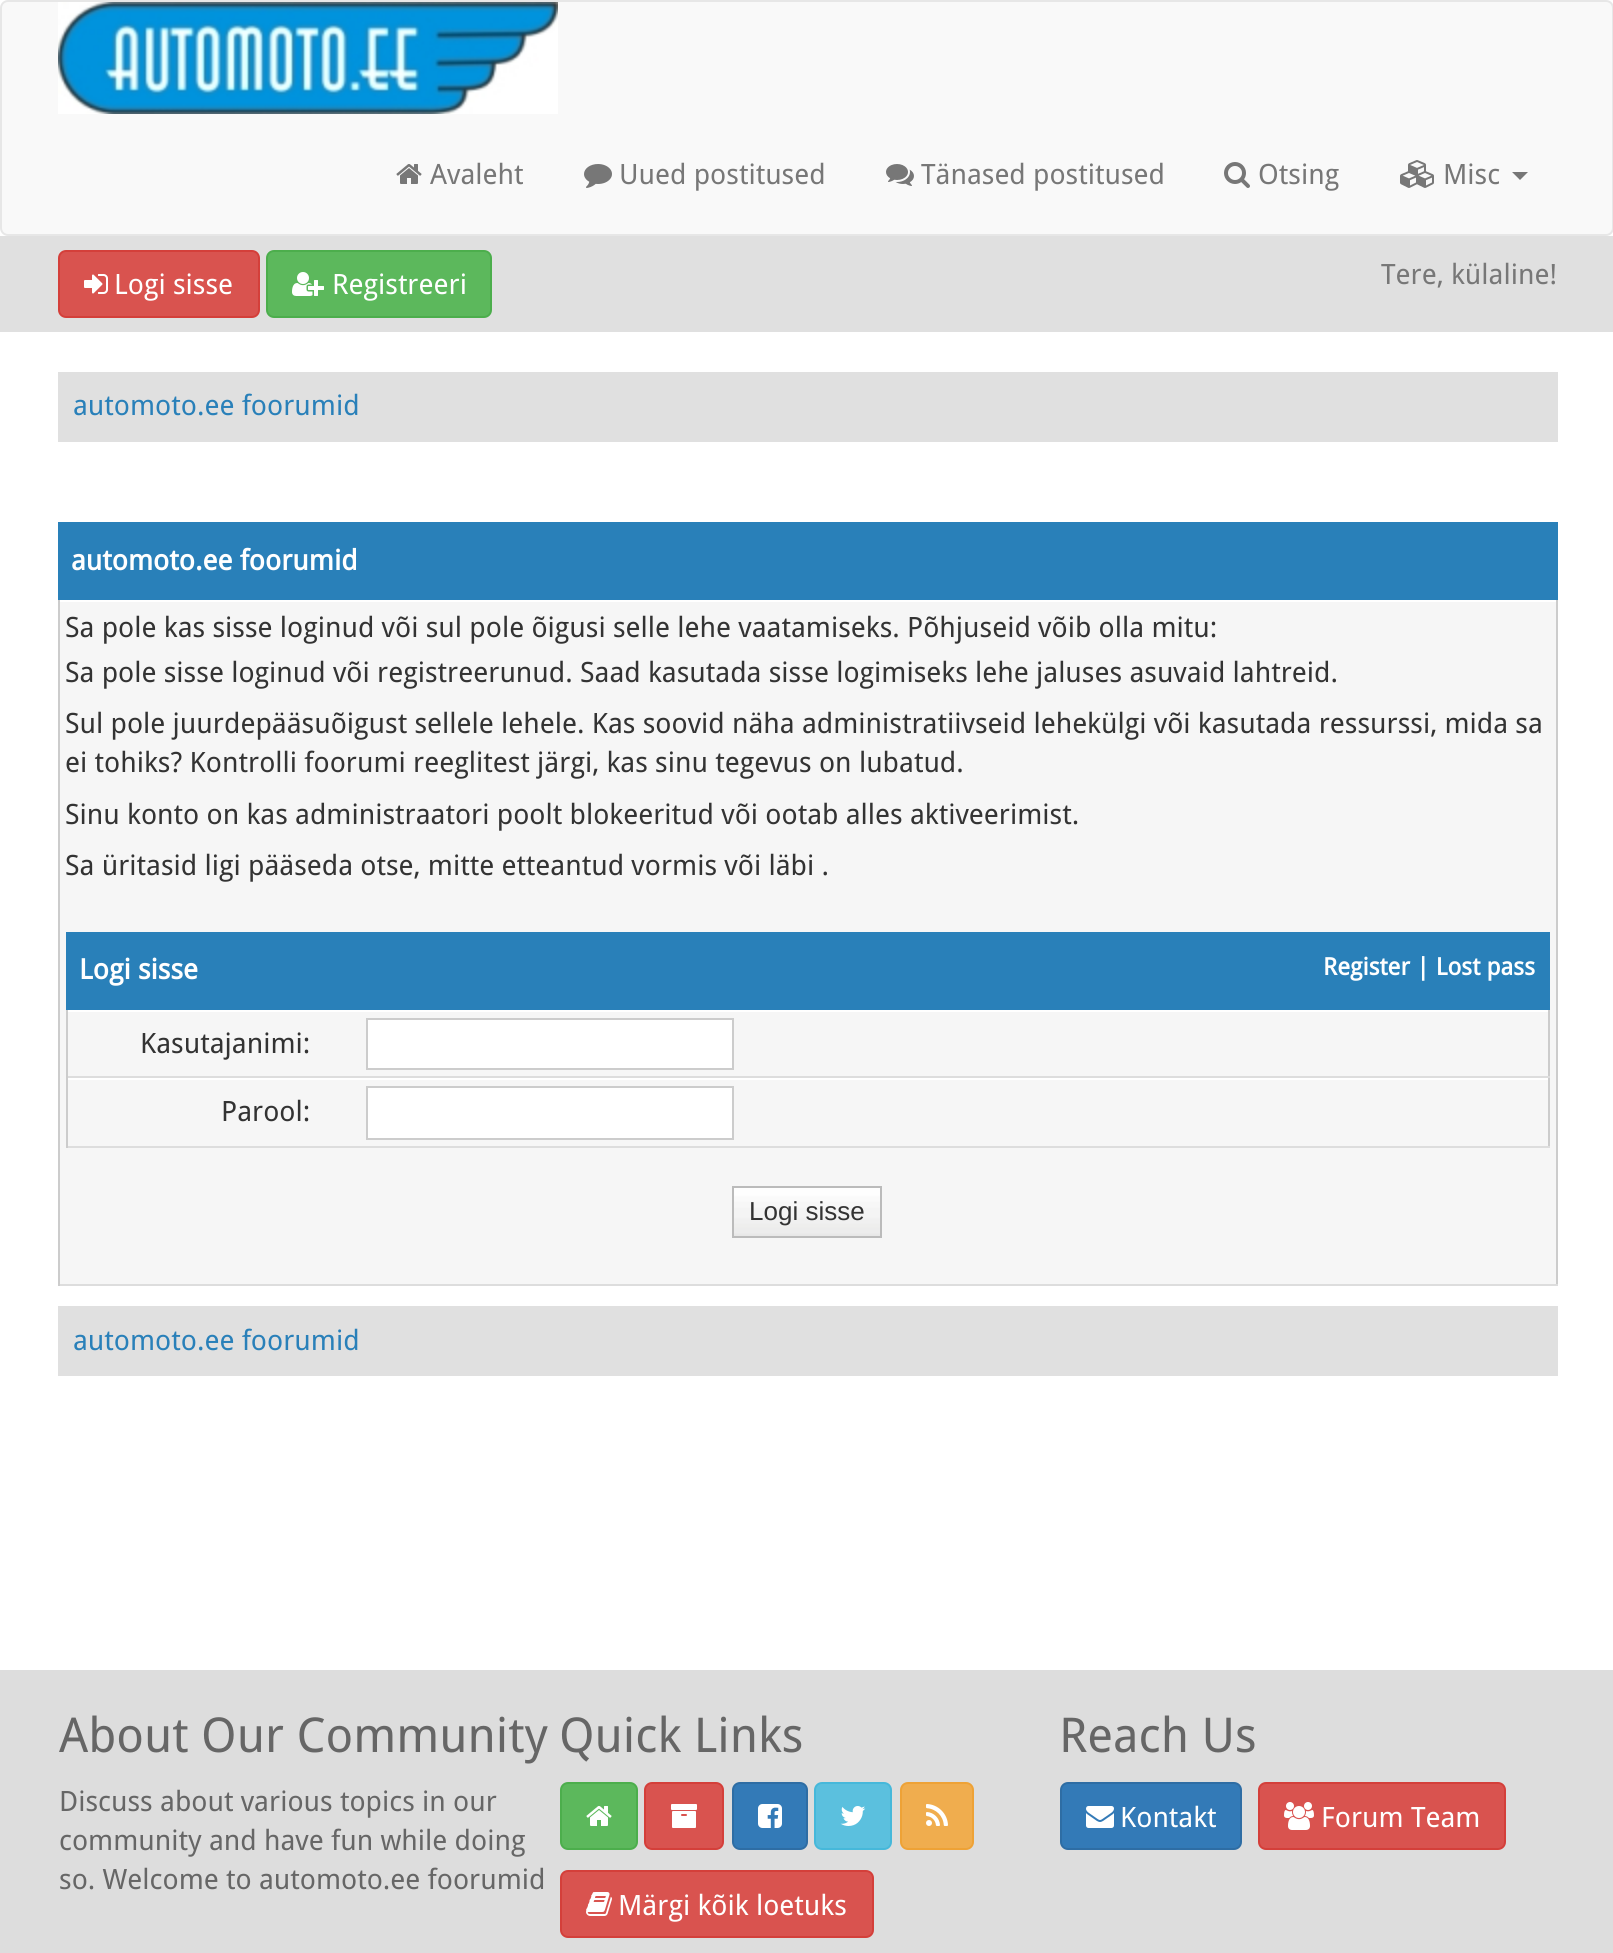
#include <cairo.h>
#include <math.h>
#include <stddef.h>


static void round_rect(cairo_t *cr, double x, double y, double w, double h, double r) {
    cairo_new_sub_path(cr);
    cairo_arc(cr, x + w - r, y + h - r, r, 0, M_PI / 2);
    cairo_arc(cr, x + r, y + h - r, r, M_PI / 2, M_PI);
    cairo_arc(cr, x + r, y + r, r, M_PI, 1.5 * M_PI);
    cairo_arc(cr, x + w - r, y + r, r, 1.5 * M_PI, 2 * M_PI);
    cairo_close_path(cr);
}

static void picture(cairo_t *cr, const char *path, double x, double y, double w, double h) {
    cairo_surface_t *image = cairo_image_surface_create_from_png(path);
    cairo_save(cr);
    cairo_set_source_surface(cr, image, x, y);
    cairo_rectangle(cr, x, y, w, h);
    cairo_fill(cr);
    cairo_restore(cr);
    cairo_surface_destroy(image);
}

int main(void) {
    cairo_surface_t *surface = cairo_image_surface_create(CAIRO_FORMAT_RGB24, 1613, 1953);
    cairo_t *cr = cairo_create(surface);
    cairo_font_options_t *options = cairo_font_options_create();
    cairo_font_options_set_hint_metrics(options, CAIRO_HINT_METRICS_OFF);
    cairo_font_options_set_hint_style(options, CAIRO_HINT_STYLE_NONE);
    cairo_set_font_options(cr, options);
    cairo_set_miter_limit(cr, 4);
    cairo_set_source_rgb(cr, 1, 1, 1);
    cairo_paint(cr);
    cairo_set_source_rgb(cr, 0.973, 0.973, 0.973);
    round_rect(cr, 1, 1, 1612, 234, 7);
    cairo_fill_preserve(cr);
    cairo_set_source_rgb(cr, 0.906, 0.906, 0.906);
    cairo_stroke(cr);
    picture(cr, "img1.png", 58, 2, 500, 112);
    picture(cr, "img2.png", 396, 164, 26, 20);
    cairo_select_font_face(cr, "Droid Sans", CAIRO_FONT_SLANT_NORMAL, CAIRO_FONT_WEIGHT_NORMAL);
    cairo_set_font_size(cr, 28);
    cairo_set_source_rgb(cr, 0.467, 0.467, 0.467);
    cairo_move_to(cr, 430, 184);
    cairo_show_text(cr, "Avaleht");
    picture(cr, "img3.png", 584, 164, 28, 24);
    cairo_move_to(cr, 619, 184);
    cairo_show_text(cr, "Uued postitused");
    picture(cr, "img4.png", 886, 164, 28, 22);
    cairo_move_to(cr, 921, 184);
    cairo_show_text(cr, "Tänased postitused");
    picture(cr, "img5.png", 1224, 162, 26, 26);
    cairo_move_to(cr, 1258, 184);
    cairo_show_text(cr, "Otsing");
    picture(cr, "img6.png", 1400, 160, 34, 28);
    cairo_move_to(cr, 1443, 184);
    cairo_show_text(cr, "Misc");
    cairo_new_path(cr);
    cairo_move_to(cr, 1512, 172);
    cairo_line_to(cr, 1528, 172);
    cairo_line_to(cr, 1520, 180);
    cairo_close_path(cr);
    cairo_fill(cr);
    cairo_set_source_rgb(cr, 0.878, 0.878, 0.878);
    cairo_rectangle(cr, 0, 236, 1613, 96);
    cairo_fill(cr);
    cairo_set_source_rgb(cr, 0.851, 0.325, 0.31);
    round_rect(cr, 59, 251, 200, 66, 7);
    cairo_fill_preserve(cr);
    cairo_set_source_rgb(cr, 0.831, 0.247, 0.227);
    cairo_stroke(cr);
    picture(cr, "img7.png", 84, 274, 24, 20);
    cairo_set_source_rgb(cr, 1, 1, 1);
    cairo_move_to(cr, 114, 294);
    cairo_show_text(cr, "Logi sisse");
    cairo_set_source_rgb(cr, 0.361, 0.722, 0.361);
    round_rect(cr, 267, 251, 224, 66, 7);
    cairo_fill_preserve(cr);
    cairo_set_source_rgb(cr, 0.298, 0.682, 0.298);
    cairo_stroke(cr);
    picture(cr, "img8.png", 292, 272, 32, 24);
    cairo_set_source_rgb(cr, 1, 1, 1);
    cairo_move_to(cr, 332, 294);
    cairo_show_text(cr, "Registreeri");
    cairo_set_source_rgb(cr, 0.467, 0.467, 0.467);
    cairo_move_to(cr, 1381, 284);
    cairo_show_text(cr, "Tere, külaline!");
    cairo_set_source_rgb(cr, 0.878, 0.878, 0.878);
    cairo_rectangle(cr, 58, 372, 1500, 70);
    cairo_fill(cr);
    cairo_set_source_rgb(cr, 0.161, 0.502, 0.725);
    cairo_move_to(cr, 73, 415);
    cairo_show_text(cr, "automoto.ee foorumid");
    cairo_rectangle(cr, 58, 522, 1500, 78);
    cairo_fill(cr);
    cairo_select_font_face(cr, "Droid Sans", CAIRO_FONT_SLANT_NORMAL, CAIRO_FONT_WEIGHT_BOLD);
    cairo_set_source_rgb(cr, 1, 1, 1);
    cairo_move_to(cr, 71, 570);
    cairo_show_text(cr, "automoto.ee foorumid");
    cairo_set_source_rgb(cr, 0.961, 0.961, 0.961);
    cairo_rectangle(cr, 60, 602, 1496, 682);
    cairo_fill(cr);
    cairo_set_source_rgb(cr, 0.8, 0.8, 0.8);
    cairo_rectangle(cr, 1556, 600, 2, 686);
    cairo_fill(cr);
    cairo_set_source_rgb(cr, 0.867, 0.867, 0.867);
    cairo_rectangle(cr, 58, 1284, 1500, 2);
    cairo_fill(cr);
    cairo_set_source_rgb(cr, 0.8, 0.8, 0.8);
    cairo_rectangle(cr, 58, 600, 2, 686);
    cairo_fill(cr);
    cairo_select_font_face(cr, "Droid Sans", CAIRO_FONT_SLANT_NORMAL, CAIRO_FONT_WEIGHT_NORMAL);
    cairo_set_source_rgb(cr, 0.2, 0.2, 0.2);
    cairo_move_to(cr, 65, 637);
    cairo_show_text(cr, "Sa pole kas sisse loginud või sul pole õigusi selle lehe vaatamiseks. Põhjuseid võib olla mitu:");
    cairo_move_to(cr, 65, 682);
    cairo_show_text(cr, "Sa pole sisse loginud või registreerunud. Saad kasutada sisse logimiseks lehe jaluses asuvaid lahtreid.");
    cairo_move_to(cr, 65, 733);
    cairo_show_text(cr, "Sul pole juurdepääsuõigust sellele lehele. Kas soovid näha administratiivseid lehekülgi või kasutada ressurssi, mida sa");
    cairo_move_to(cr, 65, 772);
    cairo_show_text(cr, "ei tohiks? Kontrolli foorumi reeglitest järgi, kas sinu tegevus on lubatud.");
    cairo_move_to(cr, 65, 824);
    cairo_show_text(cr, "Sinu konto on kas administraatori poolt blokeeritud või ootab alles aktiveerimist.");
    cairo_move_to(cr, 65, 875);
    cairo_show_text(cr, "Sa üritasid ligi pääseda otse, mitte etteantud vormis või läbi .");
    cairo_set_source_rgb(cr, 0.161, 0.502, 0.725);
    cairo_rectangle(cr, 66, 932, 1484, 78);
    cairo_fill(cr);
    cairo_select_font_face(cr, "Droid Sans", CAIRO_FONT_SLANT_NORMAL, CAIRO_FONT_WEIGHT_BOLD);
    cairo_set_source_rgb(cr, 1, 1, 1);
    cairo_move_to(cr, 79, 979);
    cairo_show_text(cr, "Logi sisse");
    cairo_set_font_size(cr, 24);
    cairo_move_to(cr, 1323, 975);
    cairo_show_text(cr, "Register | Lost pass");
    cairo_rectangle(cr, 66, 1010, 1484, 2);
    cairo_fill(cr);
    cairo_set_source_rgb(cr, 0.8, 0.8, 0.8);
    cairo_rectangle(cr, 1548, 1010, 2, 68);
    cairo_fill(cr);
    cairo_set_source_rgb(cr, 0.867, 0.867, 0.867);
    cairo_rectangle(cr, 66, 1076, 1484, 2);
    cairo_fill(cr);
    cairo_set_source_rgb(cr, 0.8, 0.8, 0.8);
    cairo_rectangle(cr, 66, 1010, 2, 68);
    cairo_fill(cr);
    cairo_select_font_face(cr, "Droid Sans", CAIRO_FONT_SLANT_NORMAL, CAIRO_FONT_WEIGHT_NORMAL);
    cairo_set_font_size(cr, 28);
    cairo_set_source_rgb(cr, 0.2, 0.2, 0.2);
    cairo_move_to(cr, 140, 1053);
    cairo_show_text(cr, "Kasutajanimi:");
    cairo_set_source_rgb(cr, 1, 1, 1);
    cairo_rectangle(cr, 367, 1019, 366, 50);
    cairo_fill_preserve(cr);
    cairo_set_source_rgb(cr, 0.8, 0.8, 0.8);
    cairo_stroke(cr);
    cairo_set_source_rgb(cr, 1, 1, 1);
    cairo_rectangle(cr, 66, 1078, 1484, 2);
    cairo_fill(cr);
    cairo_set_source_rgb(cr, 0.8, 0.8, 0.8);
    cairo_rectangle(cr, 1548, 1078, 2, 70);
    cairo_fill(cr);
    cairo_set_source_rgb(cr, 0.867, 0.867, 0.867);
    cairo_rectangle(cr, 66, 1146, 1484, 2);
    cairo_fill(cr);
    cairo_set_source_rgb(cr, 0.8, 0.8, 0.8);
    cairo_rectangle(cr, 66, 1078, 2, 70);
    cairo_fill(cr);
    cairo_set_source_rgb(cr, 0.2, 0.2, 0.2);
    cairo_move_to(cr, 221, 1121);
    cairo_show_text(cr, "Parool:");
    cairo_set_source_rgb(cr, 1, 1, 1);
    cairo_rectangle(cr, 367, 1087, 366, 52);
    cairo_fill_preserve(cr);
    cairo_set_source_rgb(cr, 0.8, 0.8, 0.8);
    cairo_stroke(cr);
    picture(cr, "img9.png", 734, 1188, 146, 48);
    cairo_rectangle(cr, 733, 1187, 148, 50);
    cairo_set_source_rgb(cr, 0.733, 0.733, 0.733);
    cairo_stroke(cr);
    cairo_select_font_face(cr, "Liberation Sans", CAIRO_FONT_SLANT_NORMAL, CAIRO_FONT_WEIGHT_NORMAL);
    cairo_set_font_size(cr, 26);
    cairo_set_source_rgb(cr, 0.2, 0.2, 0.2);
    cairo_move_to(cr, 749, 1220);
    cairo_show_text(cr, "Logi sisse");
    cairo_set_source_rgb(cr, 0.878, 0.878, 0.878);
    cairo_rectangle(cr, 58, 1306, 1500, 70);
    cairo_fill(cr);
    cairo_select_font_face(cr, "Droid Sans", CAIRO_FONT_SLANT_NORMAL, CAIRO_FONT_WEIGHT_NORMAL);
    cairo_set_font_size(cr, 28);
    cairo_set_source_rgb(cr, 0.161, 0.502, 0.725);
    cairo_move_to(cr, 73, 1350);
    cairo_show_text(cr, "automoto.ee foorumid");
    cairo_set_source_rgb(cr, 0.867, 0.867, 0.867);
    cairo_rectangle(cr, 0, 1670, 1613, 283);
    cairo_fill(cr);
    cairo_set_font_size(cr, 48);
    cairo_set_source_rgb(cr, 0.4, 0.4, 0.4);
    cairo_move_to(cr, 59, 1752);
    cairo_show_text(cr, "About Our Community");
    cairo_set_font_size(cr, 28);
    cairo_move_to(cr, 59, 1811);
    cairo_show_text(cr, "Discuss about various topics in our");
    cairo_move_to(cr, 59, 1850);
    cairo_show_text(cr, "community and have fun while doing");
    cairo_move_to(cr, 59, 1889);
    cairo_show_text(cr, "so. Welcome to automoto.ee foorumid");
    cairo_set_font_size(cr, 48);
    cairo_move_to(cr, 559, 1752);
    cairo_show_text(cr, "Quick Links");
    cairo_set_source_rgb(cr, 0.361, 0.722, 0.361);
    round_rect(cr, 561, 1783, 76, 66, 7);
    cairo_fill_preserve(cr);
    cairo_set_source_rgb(cr, 0.298, 0.682, 0.298);
    cairo_stroke(cr);
    picture(cr, "img10.png", 586, 1806, 26, 20);
    cairo_set_source_rgb(cr, 0.851, 0.325, 0.31);
    round_rect(cr, 645, 1783, 78, 66, 7);
    cairo_fill_preserve(cr);
    cairo_set_source_rgb(cr, 0.831, 0.247, 0.227);
    cairo_stroke(cr);
    picture(cr, "img11.png", 671, 1804, 26, 24);
    cairo_set_source_rgb(cr, 0.2, 0.478, 0.718);
    round_rect(cr, 733, 1783, 74, 66, 7);
    cairo_fill_preserve(cr);
    cairo_set_source_rgb(cr, 0.18, 0.427, 0.643);
    cairo_stroke(cr);
    picture(cr, "img12.png", 758, 1804, 24, 24);
    cairo_set_source_rgb(cr, 0.357, 0.753, 0.871);
    round_rect(cr, 815, 1783, 76, 66, 7);
    cairo_fill_preserve(cr);
    cairo_set_source_rgb(cr, 0.275, 0.722, 0.855);
    cairo_stroke(cr);
    picture(cr, "img13.png", 840, 1806, 26, 20);
    cairo_set_source_rgb(cr, 0.941, 0.678, 0.306);
    round_rect(cr, 901, 1783, 72, 66, 7);
    cairo_fill_preserve(cr);
    cairo_set_source_rgb(cr, 0.933, 0.635, 0.212);
    cairo_stroke(cr);
    picture(cr, "img14.png", 926, 1804, 22, 22);
    cairo_set_source_rgb(cr, 0.851, 0.325, 0.31);
    round_rect(cr, 561, 1871, 312, 66, 7);
    cairo_fill_preserve(cr);
    cairo_set_source_rgb(cr, 0.831, 0.247, 0.227);
    cairo_stroke(cr);
    picture(cr, "img15.png", 586, 1892, 26, 24);
    cairo_set_font_size(cr, 28);
    cairo_set_source_rgb(cr, 1, 1, 1);
    cairo_move_to(cr, 618, 1915);
    cairo_show_text(cr, "Märgi kõik loetuks");
    cairo_set_font_size(cr, 48);
    cairo_set_source_rgb(cr, 0.4, 0.4, 0.4);
    cairo_move_to(cr, 1059, 1752);
    cairo_show_text(cr, "Reach Us");
    cairo_set_source_rgb(cr, 0.2, 0.478, 0.718);
    round_rect(cr, 1061, 1783, 180, 66, 7);
    cairo_fill_preserve(cr);
    cairo_set_source_rgb(cr, 0.18, 0.427, 0.643);
    cairo_stroke(cr);
    picture(cr, "img16.png", 1086, 1806, 28, 22);
    cairo_set_font_size(cr, 28);
    cairo_set_source_rgb(cr, 1, 1, 1);
    cairo_move_to(cr, 1120, 1827);
    cairo_show_text(cr, "Kontakt");
    cairo_set_source_rgb(cr, 0.851, 0.325, 0.31);
    round_rect(cr, 1259, 1783, 246, 66, 7);
    cairo_fill_preserve(cr);
    cairo_set_source_rgb(cr, 0.831, 0.247, 0.227);
    cairo_stroke(cr);
    picture(cr, "img17.png", 1284, 1802, 30, 28);
    cairo_set_source_rgb(cr, 1, 1, 1);
    cairo_move_to(cr, 1321, 1827);
    cairo_show_text(cr, "Forum Team");
    cairo_surface_write_to_png(surface, "page.png");
    cairo_font_options_destroy(options);
    cairo_destroy(cr);
    cairo_surface_destroy(surface);
    return 0;
}
